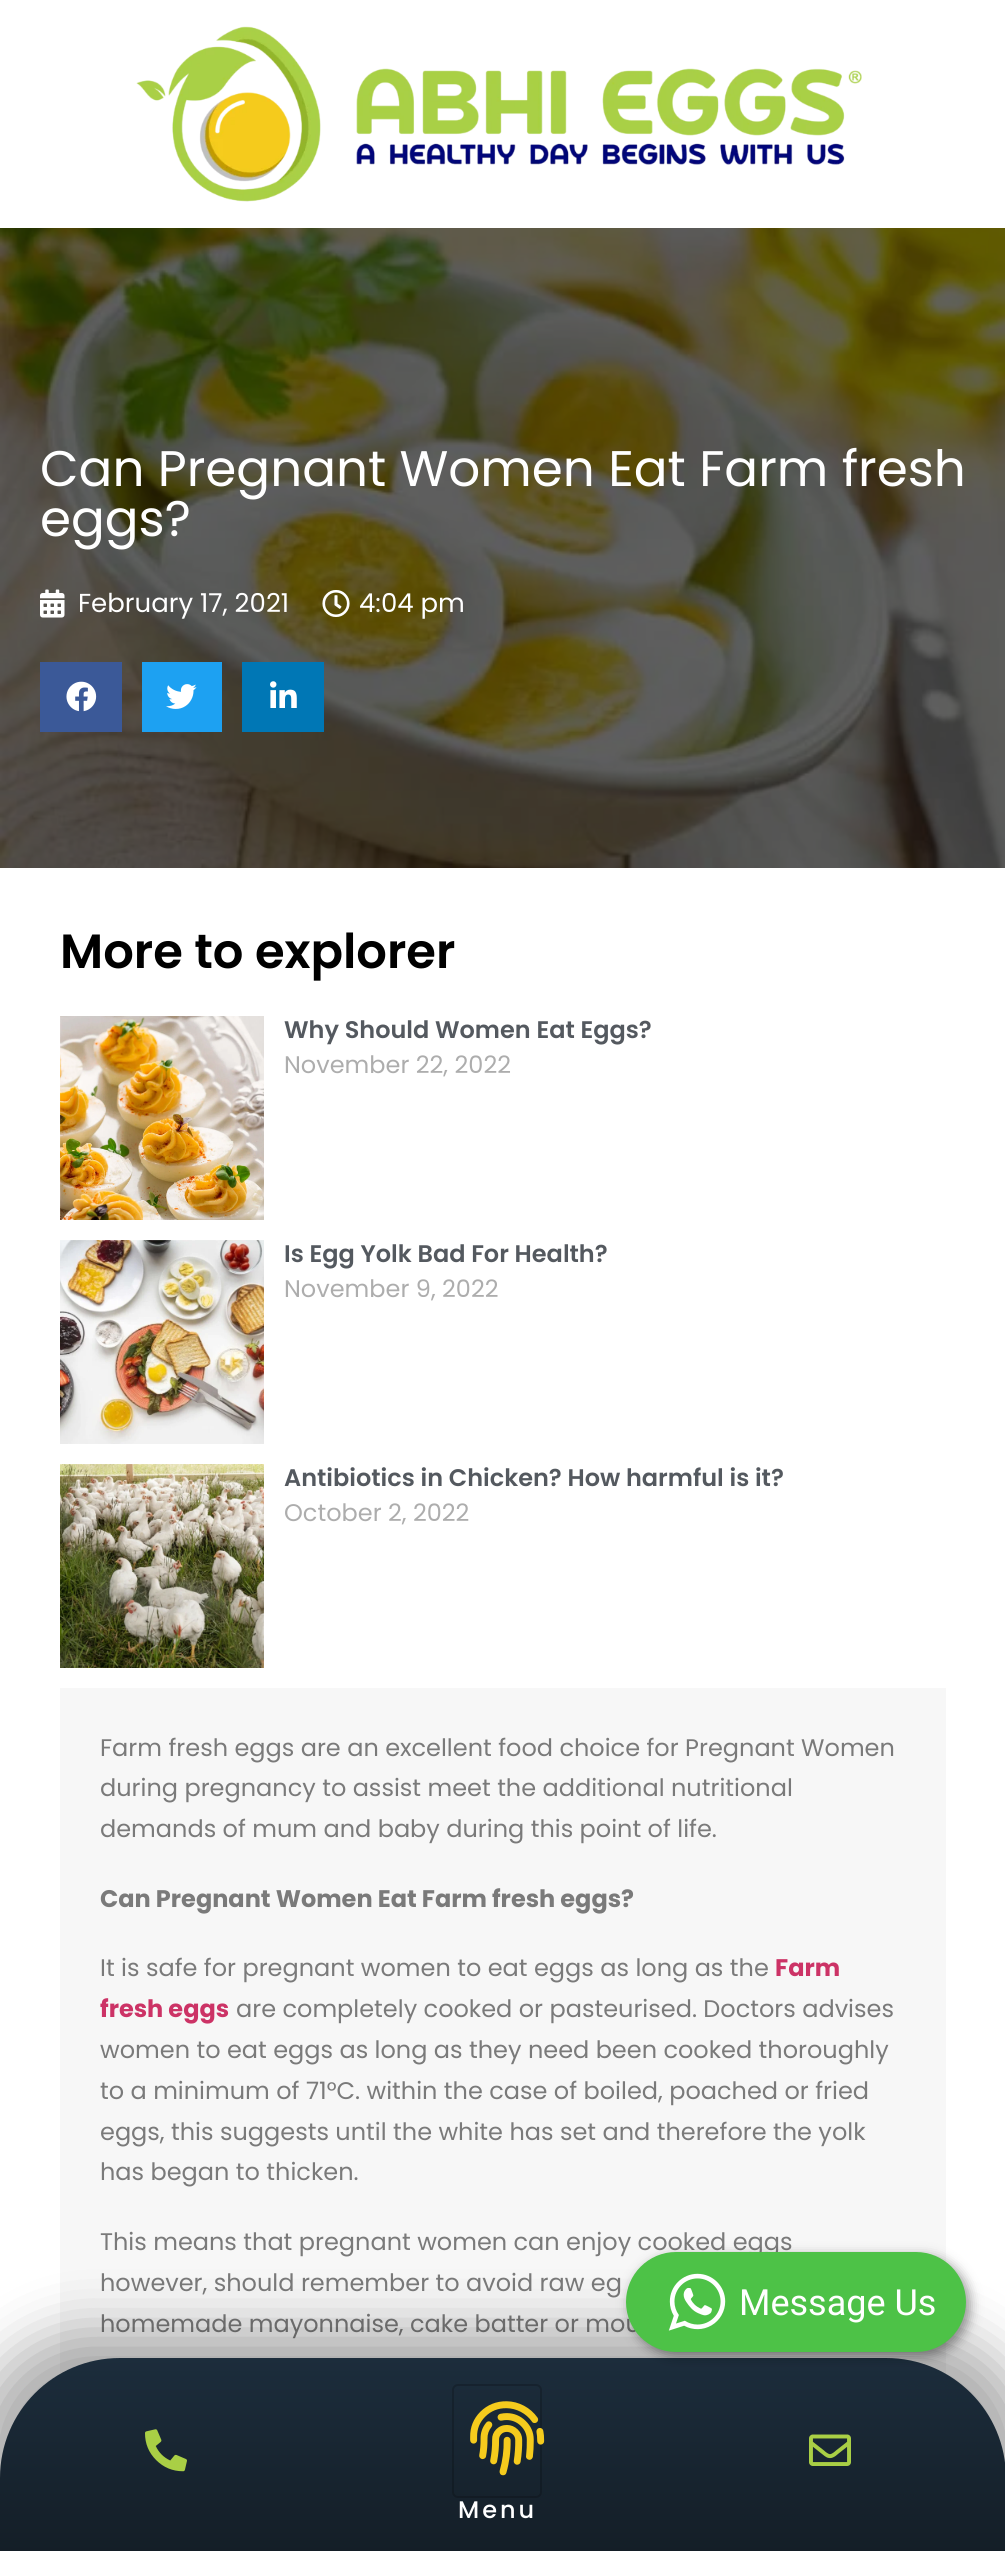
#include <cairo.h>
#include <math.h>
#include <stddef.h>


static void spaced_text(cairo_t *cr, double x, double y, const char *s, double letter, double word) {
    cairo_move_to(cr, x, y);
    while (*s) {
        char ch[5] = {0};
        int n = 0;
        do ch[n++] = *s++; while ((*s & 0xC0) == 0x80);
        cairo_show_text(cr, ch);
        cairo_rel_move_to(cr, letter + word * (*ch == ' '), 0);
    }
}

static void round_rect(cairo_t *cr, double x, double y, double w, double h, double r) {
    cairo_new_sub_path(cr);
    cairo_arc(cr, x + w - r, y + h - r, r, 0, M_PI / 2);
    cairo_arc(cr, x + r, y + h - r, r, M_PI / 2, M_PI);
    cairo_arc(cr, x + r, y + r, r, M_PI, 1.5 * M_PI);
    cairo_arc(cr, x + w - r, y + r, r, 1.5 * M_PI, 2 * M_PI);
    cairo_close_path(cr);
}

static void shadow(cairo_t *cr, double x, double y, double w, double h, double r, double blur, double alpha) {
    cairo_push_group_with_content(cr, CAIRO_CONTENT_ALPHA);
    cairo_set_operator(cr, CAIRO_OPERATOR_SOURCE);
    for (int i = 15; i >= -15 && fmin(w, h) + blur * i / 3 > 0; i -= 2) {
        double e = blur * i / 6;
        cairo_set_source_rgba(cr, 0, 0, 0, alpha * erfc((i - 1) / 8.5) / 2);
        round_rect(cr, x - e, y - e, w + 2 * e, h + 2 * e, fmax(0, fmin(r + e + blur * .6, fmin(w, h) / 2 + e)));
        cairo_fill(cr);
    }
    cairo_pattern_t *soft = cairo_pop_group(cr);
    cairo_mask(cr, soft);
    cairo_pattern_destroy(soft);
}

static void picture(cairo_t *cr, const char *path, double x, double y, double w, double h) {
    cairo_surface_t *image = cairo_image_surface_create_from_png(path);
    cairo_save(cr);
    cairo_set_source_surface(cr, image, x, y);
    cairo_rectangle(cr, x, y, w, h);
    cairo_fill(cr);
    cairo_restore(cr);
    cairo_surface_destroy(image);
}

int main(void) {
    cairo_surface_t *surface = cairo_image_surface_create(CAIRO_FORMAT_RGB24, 1005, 2551);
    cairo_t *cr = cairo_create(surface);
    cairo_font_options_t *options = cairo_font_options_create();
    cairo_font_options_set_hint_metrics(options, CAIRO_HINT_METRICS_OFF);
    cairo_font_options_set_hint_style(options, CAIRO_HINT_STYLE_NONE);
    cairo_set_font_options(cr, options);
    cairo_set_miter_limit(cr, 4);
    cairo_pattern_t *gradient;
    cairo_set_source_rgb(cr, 1, 1, 1);
    cairo_paint(cr);
    picture(cr, "img1.png", 0, 228, 1005, 640);
    cairo_select_font_face(cr, "Poppins", CAIRO_FONT_SLANT_NORMAL, CAIRO_FONT_WEIGHT_NORMAL);
    cairo_set_font_size(cr, 50);
    cairo_set_source_rgb(cr, 1, 1, 1);
    cairo_move_to(cr, 40, 486);
    cairo_show_text(cr, "Can Pregnant Women Eat Farm fresh");
    cairo_move_to(cr, 40, 536);
    cairo_show_text(cr, "eggs?");
    picture(cr, "img2.png", 40, 589, 25, 29);
    cairo_set_font_size(cr, 26);
    cairo_move_to(cr, 78, 612);
    cairo_show_text(cr, "February 17, 2021");
    picture(cr, "img3.png", 322, 590, 28, 27);
    cairo_move_to(cr, 359, 612);
    cairo_show_text(cr, "4:04 pm");
    cairo_set_source_rgb(cr, 0.231, 0.349, 0.596);
    cairo_rectangle(cr, 40, 662, 82, 70);
    cairo_fill(cr);
    picture(cr, "img4.png", 66, 681, 31, 31);
    cairo_set_source_rgb(cr, 0.114, 0.631, 0.949);
    cairo_rectangle(cr, 142, 662, 80, 70);
    cairo_fill(cr);
    picture(cr, "img5.png", 166, 684, 31, 25);
    cairo_set_source_rgb(cr, 0, 0.467, 0.71);
    cairo_rectangle(cr, 242, 662, 82, 70);
    cairo_fill(cr);
    picture(cr, "img6.png", 270, 681, 27, 27);
    cairo_select_font_face(cr, "Poppins SemiBold", CAIRO_FONT_SLANT_NORMAL, CAIRO_FONT_WEIGHT_NORMAL);
    cairo_set_font_size(cr, 48);
    cairo_set_source_rgb(cr, 0, 0, 0);
    cairo_move_to(cr, 60, 968);
    cairo_show_text(cr, "More to explorer");
    picture(cr, "img7.png", 60, 1016, 204, 204);
    cairo_set_font_size(cr, 24);
    cairo_set_source_rgb(cr, 0.329, 0.349, 0.373);
    cairo_move_to(cr, 284, 1038);
    cairo_show_text(cr, "Why Should Women Eat Eggs?");
    cairo_select_font_face(cr, "Poppins", CAIRO_FONT_SLANT_NORMAL, CAIRO_FONT_WEIGHT_NORMAL);
    cairo_set_source_rgb(cr, 0.678, 0.678, 0.678);
    cairo_move_to(cr, 284, 1073);
    cairo_show_text(cr, "November 22, 2022");
    picture(cr, "img8.png", 60, 1240, 204, 204);
    cairo_select_font_face(cr, "Poppins SemiBold", CAIRO_FONT_SLANT_NORMAL, CAIRO_FONT_WEIGHT_NORMAL);
    cairo_set_source_rgb(cr, 0.329, 0.349, 0.373);
    cairo_move_to(cr, 284, 1262);
    cairo_show_text(cr, "Is Egg Yolk Bad For Health?");
    cairo_select_font_face(cr, "Poppins", CAIRO_FONT_SLANT_NORMAL, CAIRO_FONT_WEIGHT_NORMAL);
    cairo_set_source_rgb(cr, 0.678, 0.678, 0.678);
    cairo_move_to(cr, 284, 1297);
    cairo_show_text(cr, "November 9, 2022");
    picture(cr, "img9.png", 60, 1464, 204, 204);
    cairo_select_font_face(cr, "Poppins SemiBold", CAIRO_FONT_SLANT_NORMAL, CAIRO_FONT_WEIGHT_NORMAL);
    cairo_set_source_rgb(cr, 0.329, 0.349, 0.373);
    cairo_move_to(cr, 284, 1486);
    cairo_show_text(cr, "Antibiotics in Chicken? How harmful is it?");
    cairo_select_font_face(cr, "Poppins", CAIRO_FONT_SLANT_NORMAL, CAIRO_FONT_WEIGHT_NORMAL);
    cairo_set_source_rgb(cr, 0.678, 0.678, 0.678);
    cairo_move_to(cr, 284, 1521);
    cairo_show_text(cr, "October 2, 2022");
    cairo_set_source_rgb(cr, 0.965, 0.965, 0.965);
    cairo_rectangle(cr, 60, 1688, 886, 687);
    cairo_fill(cr);
    cairo_set_source_rgb(cr, 0.478, 0.478, 0.478);
    cairo_move_to(cr, 100, 1756);
    cairo_show_text(cr, "Farm fresh eggs are an excellent food choice for Pregnant Women");
    cairo_move_to(cr, 100, 1796);
    cairo_show_text(cr, "during pregnancy to assist meet the additional nutritional");
    cairo_move_to(cr, 100, 1837);
    cairo_show_text(cr, "demands of mum and baby during this point of life.");
    cairo_select_font_face(cr, "Poppins", CAIRO_FONT_SLANT_NORMAL, CAIRO_FONT_WEIGHT_BOLD);
    cairo_move_to(cr, 100, 1907);
    cairo_show_text(cr, "Can Pregnant Women Eat Farm fresh eggs?");
    cairo_select_font_face(cr, "Poppins", CAIRO_FONT_SLANT_NORMAL, CAIRO_FONT_WEIGHT_NORMAL);
    cairo_move_to(cr, 100, 1976);
    cairo_show_text(cr, "It is safe for pregnant women to eat eggs as long as the");
    cairo_select_font_face(cr, "Poppins", CAIRO_FONT_SLANT_NORMAL, CAIRO_FONT_WEIGHT_BOLD);
    cairo_set_source_rgb(cr, 0.8, 0.2, 0.4);
    cairo_move_to(cr, 775, 1976);
    cairo_show_text(cr, "Farm");
    cairo_move_to(cr, 100, 2017);
    cairo_show_text(cr, "fresh eggs");
    cairo_select_font_face(cr, "Poppins", CAIRO_FONT_SLANT_NORMAL, CAIRO_FONT_WEIGHT_NORMAL);
    cairo_set_source_rgb(cr, 0.478, 0.478, 0.478);
    cairo_move_to(cr, 236, 2017);
    cairo_show_text(cr, "are completely cooked or pasteurised. Doctors advises");
    cairo_move_to(cr, 100, 2058);
    cairo_show_text(cr, "women to eat eggs as long as they need been cooked thoroughly");
    cairo_move_to(cr, 100, 2099);
    cairo_show_text(cr, "to a minimum of 71°C. within the case of boiled, poached or fried");
    cairo_move_to(cr, 100, 2140);
    cairo_show_text(cr, "eggs, this suggests until the white has set and therefore the yolk");
    cairo_move_to(cr, 100, 2180);
    cairo_show_text(cr, "has began to thicken.");
    cairo_move_to(cr, 100, 2250);
    cairo_show_text(cr, "This means that pregnant women can enjoy cooked eggs");
    cairo_move_to(cr, 100, 2291);
    cairo_show_text(cr, "however, should remember to avoid raw eg");
    cairo_move_to(cr, 100, 2332);
    cairo_show_text(cr, "homemade mayonnaise, cake batter or mou");
    cairo_set_source_rgb(cr, 0, 0, 0);
    shadow(cr, -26, 2332, 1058, 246, 146, 29, 0.33);
    gradient = cairo_pattern_create_linear(503, 2358, 503, 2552);
    cairo_pattern_add_color_stop_rgba(gradient, 0, 0.11, 0.176, 0.235, 1);
    cairo_pattern_add_color_stop_rgba(gradient, 1, 0.078, 0.118, 0.153, 1);
    cairo_set_source(cr, gradient);
    cairo_pattern_destroy(gradient);
    cairo_new_path(cr);
    cairo_move_to(cr, 120, 2358);
    cairo_line_to(cr, 886, 2358);
    cairo_curve_to(cr, 952.5, 2358, 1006, 2411.5, 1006, 2478);
    cairo_line_to(cr, 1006, 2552);
    cairo_line_to(cr, 0, 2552);
    cairo_line_to(cr, 0, 2478);
    cairo_curve_to(cr, 0, 2411.5, 53.5, 2358, 120, 2358);
    cairo_close_path(cr);
    cairo_fill(cr);
    cairo_set_source_rgb(cr, 0, 0, 0);
    shadow(cr, 630, 2256, 340, 100, 50, 6, 0.4);
    cairo_set_source_rgb(cr, 0.302, 0.761, 0.278);
    round_rect(cr, 626, 2252, 340, 100, 50);
    cairo_fill(cr);
    picture(cr, "img10.png", 668, 2273, 58, 58);
    cairo_select_font_face(cr, "Roboto", CAIRO_FONT_SLANT_NORMAL, CAIRO_FONT_WEIGHT_NORMAL);
    cairo_set_font_size(cr, 36);
    cairo_set_source_rgb(cr, 1, 1, 1);
    cairo_move_to(cr, 739, 2315);
    cairo_show_text(cr, "Message Us");
    picture(cr, "img11.png", 136, 26, 726, 176);
    picture(cr, "img12.png", 145, 2429, 42, 43);
    picture(cr, "img13.png", 809, 2434, 42, 32);
    round_rect(cr, 453, 2385, 88, 112, 5);
    cairo_set_source_rgba(cr, 0, 0, 0, 0.2);
    cairo_stroke(cr);
    picture(cr, "img14.png", 470, 2401, 75, 75);
    cairo_select_font_face(cr, "Poppins Medium", CAIRO_FONT_SLANT_NORMAL, CAIRO_FONT_WEIGHT_NORMAL);
    cairo_set_font_size(cr, 24);
    cairo_set_source_rgb(cr, 1, 1, 1);
    spaced_text(cr, 458, 2518, "Menu", 3, 0);
    cairo_surface_write_to_png(surface, "page.png");
    cairo_font_options_destroy(options);
    cairo_destroy(cr);
    cairo_surface_destroy(surface);
    return 0;
}
